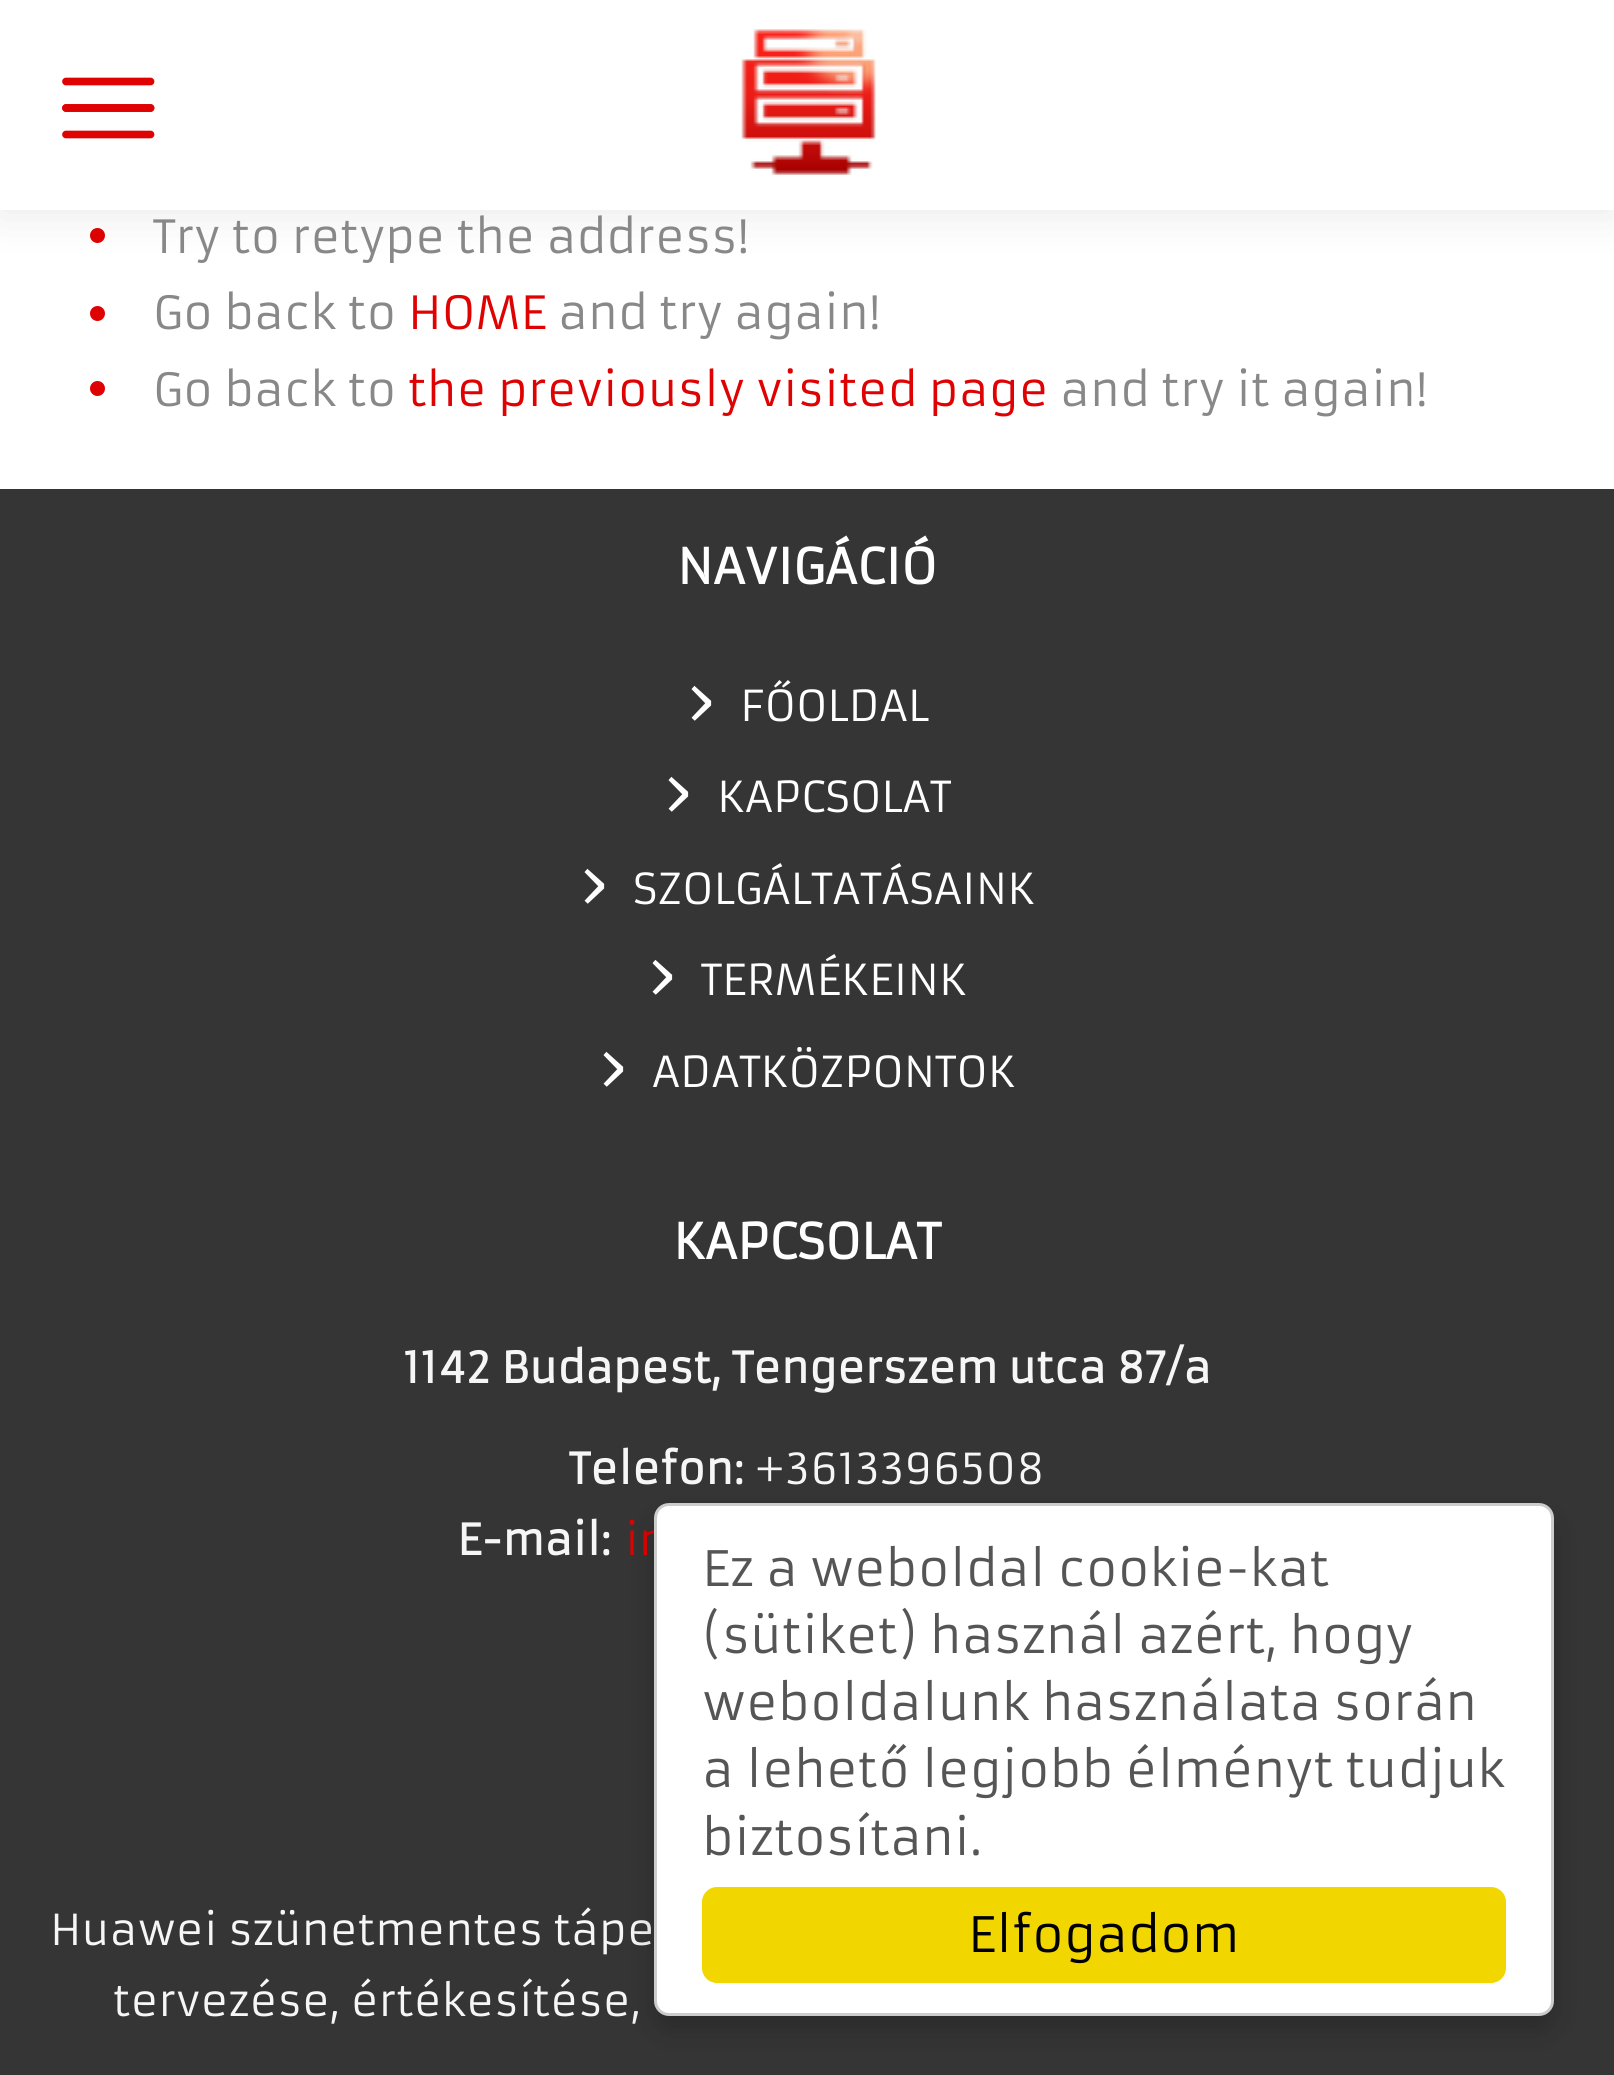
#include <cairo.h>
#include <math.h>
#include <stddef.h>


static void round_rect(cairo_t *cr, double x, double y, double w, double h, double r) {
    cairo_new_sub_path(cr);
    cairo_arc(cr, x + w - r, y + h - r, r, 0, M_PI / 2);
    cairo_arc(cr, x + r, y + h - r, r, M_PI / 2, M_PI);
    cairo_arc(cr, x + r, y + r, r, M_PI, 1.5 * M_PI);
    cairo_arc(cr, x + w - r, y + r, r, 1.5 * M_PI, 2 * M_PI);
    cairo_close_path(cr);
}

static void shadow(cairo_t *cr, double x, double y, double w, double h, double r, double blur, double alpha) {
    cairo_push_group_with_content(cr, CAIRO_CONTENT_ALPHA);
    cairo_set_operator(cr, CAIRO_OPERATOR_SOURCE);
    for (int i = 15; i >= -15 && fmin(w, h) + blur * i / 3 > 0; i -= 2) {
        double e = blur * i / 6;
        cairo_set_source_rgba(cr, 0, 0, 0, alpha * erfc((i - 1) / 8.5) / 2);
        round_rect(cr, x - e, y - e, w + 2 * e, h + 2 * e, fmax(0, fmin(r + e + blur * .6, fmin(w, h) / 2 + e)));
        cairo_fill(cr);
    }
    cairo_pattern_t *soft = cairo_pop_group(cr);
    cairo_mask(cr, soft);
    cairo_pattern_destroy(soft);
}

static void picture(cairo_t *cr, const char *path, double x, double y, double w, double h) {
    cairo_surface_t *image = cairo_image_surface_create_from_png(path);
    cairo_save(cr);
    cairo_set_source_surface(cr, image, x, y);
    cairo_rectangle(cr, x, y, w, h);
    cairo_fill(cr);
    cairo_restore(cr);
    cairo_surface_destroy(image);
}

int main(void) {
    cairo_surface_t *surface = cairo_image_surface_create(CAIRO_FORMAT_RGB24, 1614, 2075);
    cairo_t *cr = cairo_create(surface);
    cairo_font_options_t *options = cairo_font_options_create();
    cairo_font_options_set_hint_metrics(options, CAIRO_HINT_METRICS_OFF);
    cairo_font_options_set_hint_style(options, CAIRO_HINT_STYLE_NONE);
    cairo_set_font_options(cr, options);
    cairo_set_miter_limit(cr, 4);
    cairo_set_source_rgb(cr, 1, 1, 1);
    cairo_paint(cr);
    cairo_set_source_rgb(cr, 0.875, 0.008, 0.008);
    cairo_arc(cr, 97.5, 235.5, 7.5, 0, 2 * M_PI);
    cairo_fill(cr);
    cairo_set_source_rgb(cr, 0, 0, 0);
    shadow(cr, 0, 0, 1614, 210, 0, 24, 0.1);
    cairo_set_source_rgb(cr, 1, 1, 1);
    cairo_rectangle(cr, 0, 0, 1614, 210);
    cairo_fill(cr);
    cairo_new_path(cr);
    cairo_move_to(cr, 66, 81.5);
    cairo_line_to(cr, 150.5, 81.5);
    cairo_set_source_rgb(cr, 0.875, 0.008, 0.008);
    cairo_set_line_width(cr, 7.7);
    cairo_set_line_cap(cr, CAIRO_LINE_CAP_ROUND);
    cairo_stroke(cr);
    cairo_new_path(cr);
    cairo_move_to(cr, 66, 108);
    cairo_line_to(cr, 150.5, 108);
    cairo_stroke(cr);
    cairo_new_path(cr);
    cairo_move_to(cr, 66, 108);
    cairo_line_to(cr, 150.5, 108);
    cairo_stroke(cr);
    cairo_new_path(cr);
    cairo_move_to(cr, 66, 134.5);
    cairo_line_to(cr, 150.5, 134.5);
    cairo_stroke(cr);
    picture(cr, "img1.png", 740, 29, 136, 146);
    cairo_select_font_face(cr, "Armata", CAIRO_FONT_SLANT_NORMAL, CAIRO_FONT_WEIGHT_NORMAL);
    cairo_set_font_size(cr, 45);
    cairo_set_source_rgb(cr, 0.533, 0.533, 0.533);
    cairo_move_to(cr, 153, 253);
    cairo_show_text(cr, "Try to retype the address!");
    cairo_set_source_rgb(cr, 0.875, 0.008, 0.008);
    cairo_new_path(cr);
    cairo_arc(cr, 97.5, 313.5, 7.5, 0, 2 * M_PI);
    cairo_fill(cr);
    cairo_set_source_rgb(cr, 0.533, 0.533, 0.533);
    cairo_move_to(cr, 153, 329);
    cairo_show_text(cr, "Go back to");
    cairo_set_source_rgb(cr, 0.875, 0.008, 0.008);
    cairo_move_to(cr, 408, 329);
    cairo_show_text(cr, "HOME");
    cairo_set_source_rgb(cr, 0.533, 0.533, 0.533);
    cairo_move_to(cr, 558, 329);
    cairo_show_text(cr, "and try again!");
    cairo_set_source_rgb(cr, 0.875, 0.008, 0.008);
    cairo_new_path(cr);
    cairo_arc(cr, 97.5, 388.5, 7.5, 0, 2 * M_PI);
    cairo_fill(cr);
    cairo_set_source_rgb(cr, 0.533, 0.533, 0.533);
    cairo_move_to(cr, 153, 406);
    cairo_show_text(cr, "Go back to");
    cairo_set_source_rgb(cr, 0.875, 0.008, 0.008);
    cairo_move_to(cr, 408, 406);
    cairo_show_text(cr, "the previously visited page");
    cairo_set_source_rgb(cr, 0.533, 0.533, 0.533);
    cairo_move_to(cr, 1060, 406);
    cairo_show_text(cr, "and try it again!");
    cairo_set_source_rgb(cr, 0.208, 0.208, 0.208);
    cairo_rectangle(cr, 0, 489, 1614, 1586);
    cairo_fill(cr);
    cairo_select_font_face(cr, "Armata", CAIRO_FONT_SLANT_NORMAL, CAIRO_FONT_WEIGHT_BOLD);
    cairo_set_font_size(cr, 48);
    cairo_set_source_rgb(cr, 1, 1, 1);
    cairo_move_to(cr, 677, 584);
    cairo_show_text(cr, "NAVIGÁCIÓ");
    cairo_select_font_face(cr, "Armata", CAIRO_FONT_SLANT_NORMAL, CAIRO_FONT_WEIGHT_NORMAL);
    cairo_set_font_size(cr, 72);
    cairo_move_to(cr, 686, 724);
    cairo_show_text(cr, "›");
    cairo_set_font_size(cr, 42);
    cairo_move_to(cr, 740, 721);
    cairo_show_text(cr, "FŐOLDAL");
    cairo_set_font_size(cr, 72);
    cairo_move_to(cr, 663, 815);
    cairo_show_text(cr, "›");
    cairo_set_font_size(cr, 42);
    cairo_move_to(cr, 717, 812);
    cairo_show_text(cr, "KAPCSOLAT");
    cairo_set_font_size(cr, 72);
    cairo_move_to(cr, 579, 907);
    cairo_show_text(cr, "›");
    cairo_set_font_size(cr, 42);
    cairo_move_to(cr, 633, 904);
    cairo_show_text(cr, "SZOLGÁLTATÁSAINK");
    cairo_set_font_size(cr, 72);
    cairo_move_to(cr, 647, 998);
    cairo_show_text(cr, "›");
    cairo_set_font_size(cr, 42);
    cairo_move_to(cr, 701, 995);
    cairo_show_text(cr, "TERMÉKEINK");
    cairo_set_font_size(cr, 72);
    cairo_move_to(cr, 598, 1090);
    cairo_show_text(cr, "›");
    cairo_set_font_size(cr, 42);
    cairo_move_to(cr, 652, 1087);
    cairo_show_text(cr, "ADATKÖZPONTOK");
    cairo_select_font_face(cr, "Armata", CAIRO_FONT_SLANT_NORMAL, CAIRO_FONT_WEIGHT_BOLD);
    cairo_set_font_size(cr, 48);
    cairo_move_to(cr, 673, 1259);
    cairo_show_text(cr, "KAPCSOLAT");
    cairo_set_font_size(cr, 42);
    cairo_set_source_rgb(cr, 0.961, 0.961, 0.961);
    cairo_move_to(cr, 403, 1383);
    cairo_show_text(cr, "1142 Budapest, Tengerszem utca 87/a");
    cairo_move_to(cr, 569, 1484);
    cairo_show_text(cr, "Telefon:");
    cairo_select_font_face(cr, "Armata", CAIRO_FONT_SLANT_NORMAL, CAIRO_FONT_WEIGHT_NORMAL);
    cairo_move_to(cr, 754, 1484);
    cairo_show_text(cr, "+3613396508");
    cairo_select_font_face(cr, "Armata", CAIRO_FONT_SLANT_NORMAL, CAIRO_FONT_WEIGHT_BOLD);
    cairo_move_to(cr, 457, 1555);
    cairo_show_text(cr, "E-mail:");
    cairo_select_font_face(cr, "Armata", CAIRO_FONT_SLANT_NORMAL, CAIRO_FONT_WEIGHT_NORMAL);
    cairo_set_source_rgb(cr, 0.875, 0.008, 0.008);
    cairo_move_to(cr, 625, 1555);
    cairo_show_text(cr, "in");
    cairo_set_source_rgb(cr, 0.961, 0.961, 0.961);
    cairo_move_to(cr, 50, 1945);
    cairo_show_text(cr, "Huawei szünetmentes tápe");
    cairo_move_to(cr, 113, 2016);
    cairo_show_text(cr, "tervezése, értékesítése,");
    cairo_set_source_rgb(cr, 0, 0, 0);
    shadow(cr, 654, 1518, 900, 513, 15, 15, 0.2);
    cairo_set_source_rgb(cr, 1, 1, 1);
    round_rect(cr, 655.5, 1504.5, 897, 510, 13.5);
    cairo_fill_preserve(cr);
    cairo_set_source_rgb(cr, 0.8, 0.8, 0.8);
    cairo_set_line_width(cr, 3);
    cairo_set_line_cap(cr, CAIRO_LINE_CAP_BUTT);
    cairo_stroke(cr);
    cairo_set_font_size(cr, 48);
    cairo_set_source_rgb(cr, 0.333, 0.333, 0.333);
    cairo_move_to(cr, 702, 1586);
    cairo_show_text(cr, "Ez a weboldal cookie-kat");
    cairo_move_to(cr, 702, 1653);
    cairo_show_text(cr, "(sütiket) használ azért, hogy");
    cairo_move_to(cr, 702, 1720);
    cairo_show_text(cr, "weboldalunk használata során");
    cairo_move_to(cr, 702, 1787);
    cairo_show_text(cr, "a lehető legjobb élményt tudjuk");
    cairo_move_to(cr, 702, 1855);
    cairo_show_text(cr, "biztosítani.");
    cairo_set_source_rgb(cr, 0.945, 0.839, 0);
    round_rect(cr, 702, 1887, 804, 96, 15);
    cairo_fill(cr);
    cairo_set_source_rgb(cr, 0, 0, 0);
    cairo_move_to(cr, 968, 1952);
    cairo_show_text(cr, "Elfogadom");
    cairo_surface_write_to_png(surface, "page.png");
    cairo_font_options_destroy(options);
    cairo_destroy(cr);
    cairo_surface_destroy(surface);
    return 0;
}
